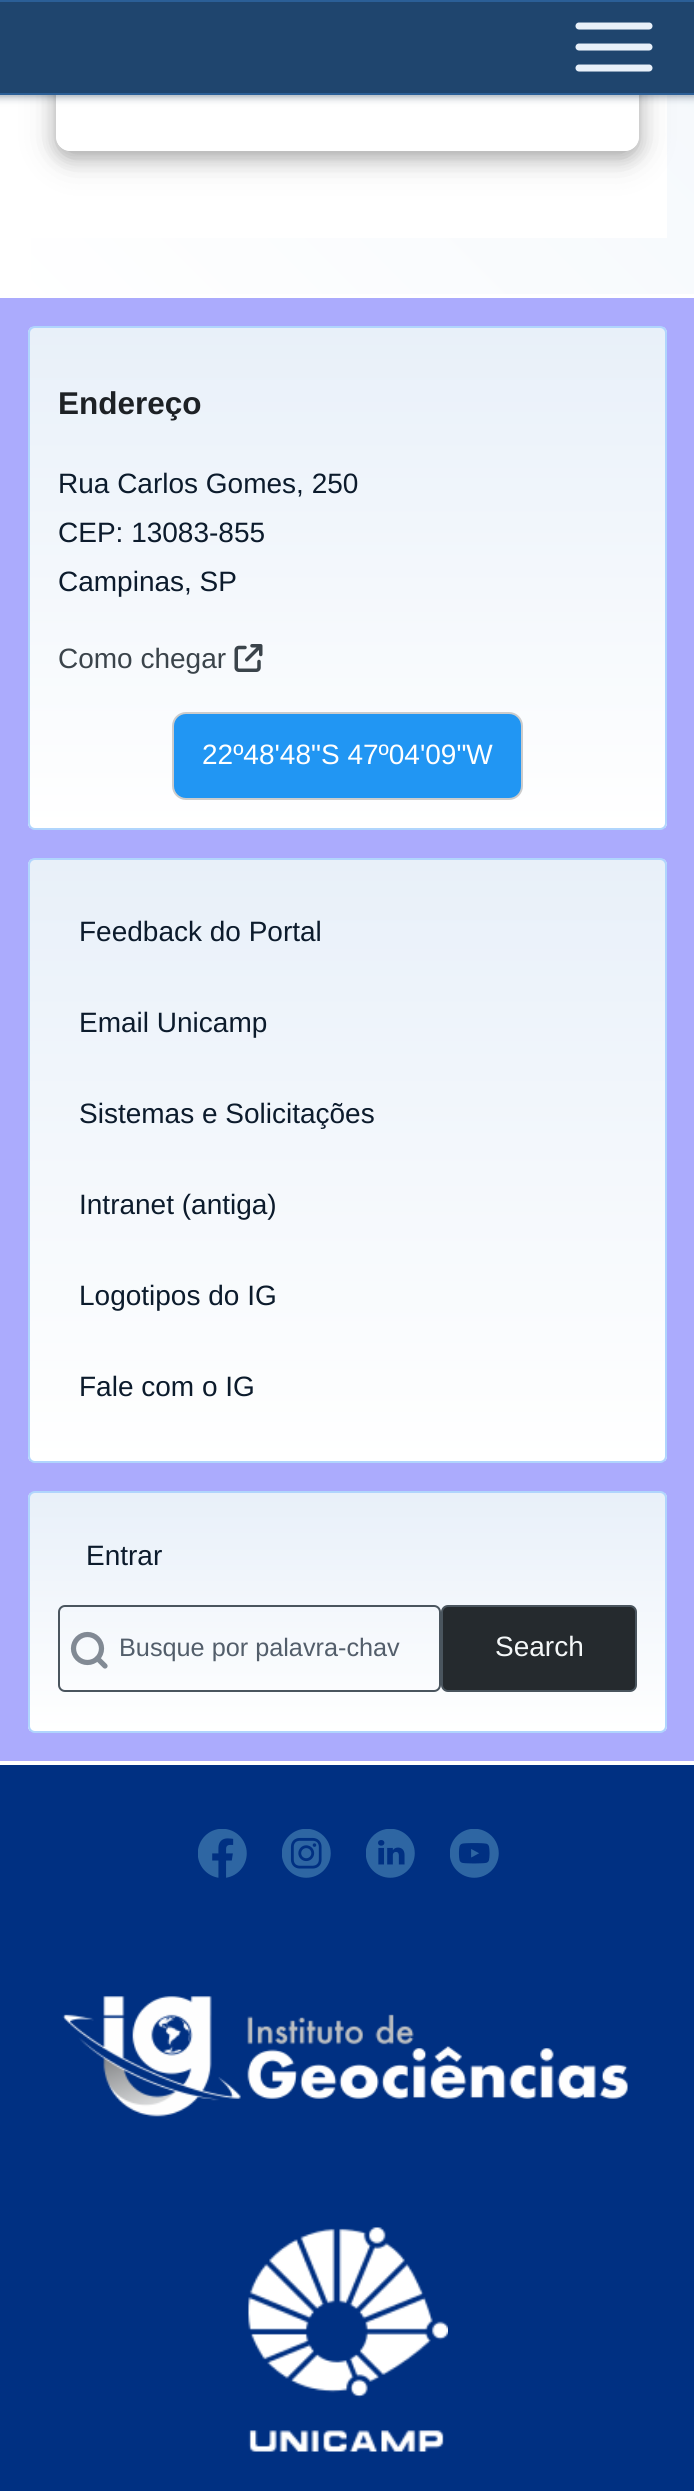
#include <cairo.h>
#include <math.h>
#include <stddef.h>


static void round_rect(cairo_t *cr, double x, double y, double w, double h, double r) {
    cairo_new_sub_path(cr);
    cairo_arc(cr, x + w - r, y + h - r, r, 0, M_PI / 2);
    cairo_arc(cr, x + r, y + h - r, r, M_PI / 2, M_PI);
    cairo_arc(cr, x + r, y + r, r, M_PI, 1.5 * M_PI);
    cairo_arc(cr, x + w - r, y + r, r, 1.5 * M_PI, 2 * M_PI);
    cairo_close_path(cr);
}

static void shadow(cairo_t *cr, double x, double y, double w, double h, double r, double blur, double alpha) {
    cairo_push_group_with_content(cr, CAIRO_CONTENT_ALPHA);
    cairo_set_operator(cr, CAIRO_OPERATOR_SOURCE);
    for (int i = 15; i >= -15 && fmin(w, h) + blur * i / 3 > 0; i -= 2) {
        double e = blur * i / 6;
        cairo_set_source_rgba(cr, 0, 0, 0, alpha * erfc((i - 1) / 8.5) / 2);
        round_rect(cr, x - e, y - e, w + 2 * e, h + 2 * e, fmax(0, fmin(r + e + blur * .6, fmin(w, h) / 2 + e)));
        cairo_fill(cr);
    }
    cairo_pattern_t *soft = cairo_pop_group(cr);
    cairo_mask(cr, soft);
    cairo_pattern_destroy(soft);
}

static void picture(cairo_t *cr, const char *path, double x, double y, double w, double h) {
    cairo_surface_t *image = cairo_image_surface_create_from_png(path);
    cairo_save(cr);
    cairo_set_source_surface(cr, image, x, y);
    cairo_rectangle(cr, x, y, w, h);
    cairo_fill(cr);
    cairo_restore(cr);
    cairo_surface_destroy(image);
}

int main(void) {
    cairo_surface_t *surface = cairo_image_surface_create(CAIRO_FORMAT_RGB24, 694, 2491);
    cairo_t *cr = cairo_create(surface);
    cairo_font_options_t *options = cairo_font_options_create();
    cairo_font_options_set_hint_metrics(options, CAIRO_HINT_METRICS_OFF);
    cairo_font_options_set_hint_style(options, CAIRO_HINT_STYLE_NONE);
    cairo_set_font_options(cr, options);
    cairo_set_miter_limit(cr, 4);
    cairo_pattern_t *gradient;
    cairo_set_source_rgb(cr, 1, 1, 1);
    cairo_paint(cr);
    gradient = cairo_pattern_create_linear(-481, -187, 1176, -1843);
    cairo_pattern_add_color_stop_rgba(gradient, 0, 1, 1, 1, 1);
    cairo_pattern_add_color_stop_rgba(gradient, 1, 0.859, 0.91, 0.961, 1);
    cairo_set_source(cr, gradient);
    cairo_pattern_destroy(gradient);
    cairo_rectangle(cr, 31, 95, 663, 199);
    cairo_fill(cr);
    cairo_set_source_rgb(cr, 1, 1, 1);
    cairo_rectangle(cr, 31, 95, 636, 143);
    cairo_fill(cr);
    cairo_set_source_rgb(cr, 0.078, 0.173, 0.275);
    shadow(cr, -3, -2, 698, 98, 0, 4.5, 0.5);
    cairo_save(cr);
    cairo_set_fill_rule(cr, CAIRO_FILL_RULE_EVEN_ODD);
    cairo_new_path(cr);
    cairo_move_to(cr, 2, 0);
    cairo_line_to(cr, 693, 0);
    cairo_line_to(cr, 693, 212);
    cairo_line_to(cr, 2, 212);
    cairo_close_path(cr);
    cairo_move_to(cr, 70, -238);
    cairo_line_to(cr, 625, -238);
    cairo_curve_to(cr, 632.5, -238, 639, -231.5, 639, -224);
    cairo_line_to(cr, 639, 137);
    cairo_curve_to(cr, 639, 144.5, 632.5, 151, 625, 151);
    cairo_line_to(cr, 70, 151);
    cairo_curve_to(cr, 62.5, 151, 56, 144.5, 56, 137);
    cairo_line_to(cr, 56, -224);
    cairo_curve_to(cr, 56, -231.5, 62.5, -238, 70, -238);
    cairo_close_path(cr);
    cairo_clip(cr);
    cairo_set_source_rgb(cr, 0, 0, 0);
    shadow(cr, 56, -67, 583, 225, 14, 17.5, 0.19);
    cairo_restore(cr);
    cairo_save(cr);
    cairo_set_fill_rule(cr, CAIRO_FILL_RULE_EVEN_ODD);
    cairo_new_path(cr);
    cairo_move_to(cr, 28, 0);
    cairo_line_to(cr, 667, 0);
    cairo_line_to(cr, 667, 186);
    cairo_line_to(cr, 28, 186);
    cairo_close_path(cr);
    cairo_move_to(cr, 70, -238);
    cairo_line_to(cr, 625, -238);
    cairo_curve_to(cr, 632.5, -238, 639, -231.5, 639, -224);
    cairo_line_to(cr, 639, 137);
    cairo_curve_to(cr, 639, 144.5, 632.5, 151, 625, 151);
    cairo_line_to(cr, 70, 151);
    cairo_curve_to(cr, 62.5, 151, 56, 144.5, 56, 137);
    cairo_line_to(cr, 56, -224);
    cairo_curve_to(cr, 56, -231.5, 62.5, -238, 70, -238);
    cairo_close_path(cr);
    cairo_clip(cr);
    cairo_set_source_rgb(cr, 0, 0, 0);
    shadow(cr, 56, -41, 583, 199, 14, 9, 0.2);
    cairo_restore(cr);
    cairo_set_source_rgb(cr, 0.122, 0.271, 0.431);
    cairo_rectangle(cr, 0, 2, 694, 91);
    cairo_fill(cr);
    cairo_set_source_rgb(cr, 0.169, 0.373, 0.592);
    cairo_rectangle(cr, 0, 0, 694, 2);
    cairo_fill(cr);
    cairo_rectangle(cr, 0, 93, 694, 2);
    cairo_fill(cr);
    cairo_new_path(cr);
    cairo_move_to(cr, 579, 68);
    cairo_line_to(cr, 649, 68);
    cairo_close_path(cr);
    cairo_set_source_rgb(cr, 0.91, 0.941, 0.976);
    cairo_set_line_width(cr, 7);
    cairo_set_line_cap(cr, CAIRO_LINE_CAP_ROUND);
    cairo_set_line_join(cr, CAIRO_LINE_JOIN_ROUND);
    cairo_stroke(cr);
    cairo_new_path(cr);
    cairo_move_to(cr, 579, 47);
    cairo_line_to(cr, 649, 47);
    cairo_close_path(cr);
    cairo_stroke(cr);
    cairo_new_path(cr);
    cairo_move_to(cr, 579, 26);
    cairo_line_to(cr, 649, 26);
    cairo_close_path(cr);
    cairo_stroke(cr);
    cairo_set_source_rgb(cr, 0.671, 0.671, 0.992);
    cairo_rectangle(cr, 0, 298, 694, 1463);
    cairo_fill(cr);
    cairo_save(cr);
    round_rect(cr, 28, 326, 639, 504, 7);
    cairo_clip(cr);
    gradient = cairo_pattern_create_linear(347, 828, 347, 327);
    cairo_pattern_add_color_stop_rgba(gradient, 0, 1, 1, 1, 1);
    cairo_pattern_add_color_stop_rgba(gradient, 1, 0.91, 0.941, 0.976, 1);
    cairo_set_source(cr, gradient);
    cairo_pattern_destroy(gradient);
    cairo_rectangle(cr, 28, 327, 639, 501);
    cairo_fill(cr);
    cairo_restore(cr);
    round_rect(cr, 29, 327, 637, 502, 6);
    cairo_set_source_rgb(cr, 0.69, 0.835, 0.992);
    cairo_set_line_width(cr, 2);
    cairo_set_line_cap(cr, CAIRO_LINE_CAP_BUTT);
    cairo_set_line_join(cr, CAIRO_LINE_JOIN_MITER);
    cairo_stroke(cr);
    cairo_select_font_face(cr, "Liberation Sans", CAIRO_FONT_SLANT_NORMAL, CAIRO_FONT_WEIGHT_BOLD);
    cairo_set_font_size(cr, 31.5);
    cairo_set_source_rgb(cr, 0.114, 0.129, 0.145);
    cairo_move_to(cr, 58, 414);
    cairo_show_text(cr, "Endereço");
    cairo_select_font_face(cr, "Liberation Sans", CAIRO_FONT_SLANT_NORMAL, CAIRO_FONT_WEIGHT_NORMAL);
    cairo_set_font_size(cr, 28);
    cairo_set_source_rgb(cr, 0.047, 0.106, 0.173);
    cairo_move_to(cr, 58, 493);
    cairo_show_text(cr, "Rua Carlos Gomes, 250");
    cairo_move_to(cr, 58, 542);
    cairo_show_text(cr, "CEP: 13083-855");
    cairo_move_to(cr, 58, 591);
    cairo_show_text(cr, "Campinas, SP");
    cairo_set_source_rgb(cr, 0.231, 0.267, 0.294);
    cairo_move_to(cr, 58, 668);
    cairo_show_text(cr, "Como chegar");
    picture(cr, "img1.png", 234, 644, 29, 28);
    cairo_set_source_rgb(cr, 0.129, 0.588, 0.953);
    round_rect(cr, 173, 713, 349, 86, 13);
    cairo_fill_preserve(cr);
    cairo_set_source_rgb(cr, 0.8, 0.8, 0.8);
    cairo_stroke(cr);
    cairo_set_source_rgb(cr, 1, 1, 1);
    cairo_move_to(cr, 202, 764);
    cairo_show_text(cr, "22º48'48\"S 47º04'09\"W");
    cairo_save(cr);
    round_rect(cr, 28, 858, 639, 605, 7);
    cairo_clip(cr);
    gradient = cairo_pattern_create_linear(347, 1461, 347, 859);
    cairo_pattern_add_color_stop_rgba(gradient, 0, 1, 1, 1, 1);
    cairo_pattern_add_color_stop_rgba(gradient, 1, 0.91, 0.941, 0.976, 1);
    cairo_set_source(cr, gradient);
    cairo_pattern_destroy(gradient);
    cairo_rectangle(cr, 28, 859, 639, 602);
    cairo_fill(cr);
    cairo_restore(cr);
    round_rect(cr, 29, 859, 637, 603, 6);
    cairo_set_source_rgb(cr, 0.69, 0.835, 0.992);
    cairo_stroke(cr);
    cairo_set_source_rgb(cr, 0.047, 0.106, 0.173);
    cairo_move_to(cr, 79, 941);
    cairo_show_text(cr, "Feedback do Portal");
    cairo_move_to(cr, 79, 1032);
    cairo_show_text(cr, "Email Unicamp");
    cairo_move_to(cr, 79, 1123);
    cairo_show_text(cr, "Sistemas e Solicitações");
    cairo_move_to(cr, 79, 1214);
    cairo_show_text(cr, "Intranet (antiga)");
    cairo_move_to(cr, 79, 1305);
    cairo_show_text(cr, "Logotipos do IG");
    cairo_move_to(cr, 79, 1396);
    cairo_show_text(cr, "Fale com o IG");
    cairo_save(cr);
    round_rect(cr, 28, 1491, 639, 242, 7);
    cairo_clip(cr);
    gradient = cairo_pattern_create_linear(347, 1731, 347, 1493);
    cairo_pattern_add_color_stop_rgba(gradient, 0, 1, 1, 1, 1);
    cairo_pattern_add_color_stop_rgba(gradient, 1, 0.91, 0.941, 0.976, 1);
    cairo_set_source(cr, gradient);
    cairo_pattern_destroy(gradient);
    cairo_rectangle(cr, 28, 1493, 639, 238);
    cairo_fill(cr);
    cairo_restore(cr);
    round_rect(cr, 29, 1492, 637, 240, 6);
    cairo_set_source_rgb(cr, 0.69, 0.835, 0.992);
    cairo_stroke(cr);
    cairo_set_source_rgb(cr, 0.047, 0.106, 0.173);
    cairo_move_to(cr, 86, 1565);
    cairo_show_text(cr, "Entrar");
    round_rect(cr, 59, 1606, 381, 85, 6);
    cairo_set_source_rgb(cr, 0.29, 0.333, 0.369);
    cairo_stroke(cr);
    cairo_arc(cr, 87.5, 1648.5, 14, 0, 2 * M_PI);
    cairo_set_source_rgba(cr, 0.047, 0.106, 0.173, 0.5);
    cairo_set_line_width(cr, 5.2);
    cairo_stroke(cr);
    cairo_new_path(cr);
    cairo_move_to(cr, 105, 1666);
    cairo_line_to(cr, 97.5, 1658.5);
    cairo_set_source_rgb(cr, 0.51, 0.545, 0.584);
    cairo_set_line_cap(cr, CAIRO_LINE_CAP_ROUND);
    cairo_set_line_join(cr, CAIRO_LINE_JOIN_ROUND);
    cairo_stroke(cr);
    cairo_set_font_size(cr, 25.25);
    cairo_set_source_rgb(cr, 0.325, 0.369, 0.42);
    cairo_move_to(cr, 119, 1656);
    cairo_show_text(cr, "Busque por palavra-chav");
    cairo_set_source_rgb(cr, 0.145, 0.165, 0.18);
    round_rect(cr, 442, 1606, 194, 85, 6);
    cairo_fill_preserve(cr);
    cairo_set_source_rgb(cr, 0.29, 0.333, 0.369);
    cairo_set_line_width(cr, 2);
    cairo_set_line_cap(cr, CAIRO_LINE_CAP_BUTT);
    cairo_set_line_join(cr, CAIRO_LINE_JOIN_MITER);
    cairo_stroke(cr);
    cairo_set_font_size(cr, 28);
    cairo_set_source_rgb(cr, 0.957, 0.965, 0.969);
    cairo_move_to(cr, 495, 1656);
    cairo_show_text(cr, "Search");
    cairo_set_source_rgb(cr, 0, 0.188, 0.51);
    cairo_rectangle(cr, 0, 1765, 694, 726);
    cairo_fill(cr);
    picture(cr, "img2.png", 198, 1829, 49, 49);
    picture(cr, "img3.png", 282, 1829, 49, 49);
    picture(cr, "img4.png", 366, 1829, 49, 49);
    picture(cr, "img5.png", 450, 1829, 49, 49);
    picture(cr, "img6.png", 62, 1996, 566, 121);
    picture(cr, "img7.png", 248, 2227, 200, 225);
    cairo_surface_write_to_png(surface, "page.png");
    cairo_font_options_destroy(options);
    cairo_destroy(cr);
    cairo_surface_destroy(surface);
    return 0;
}
